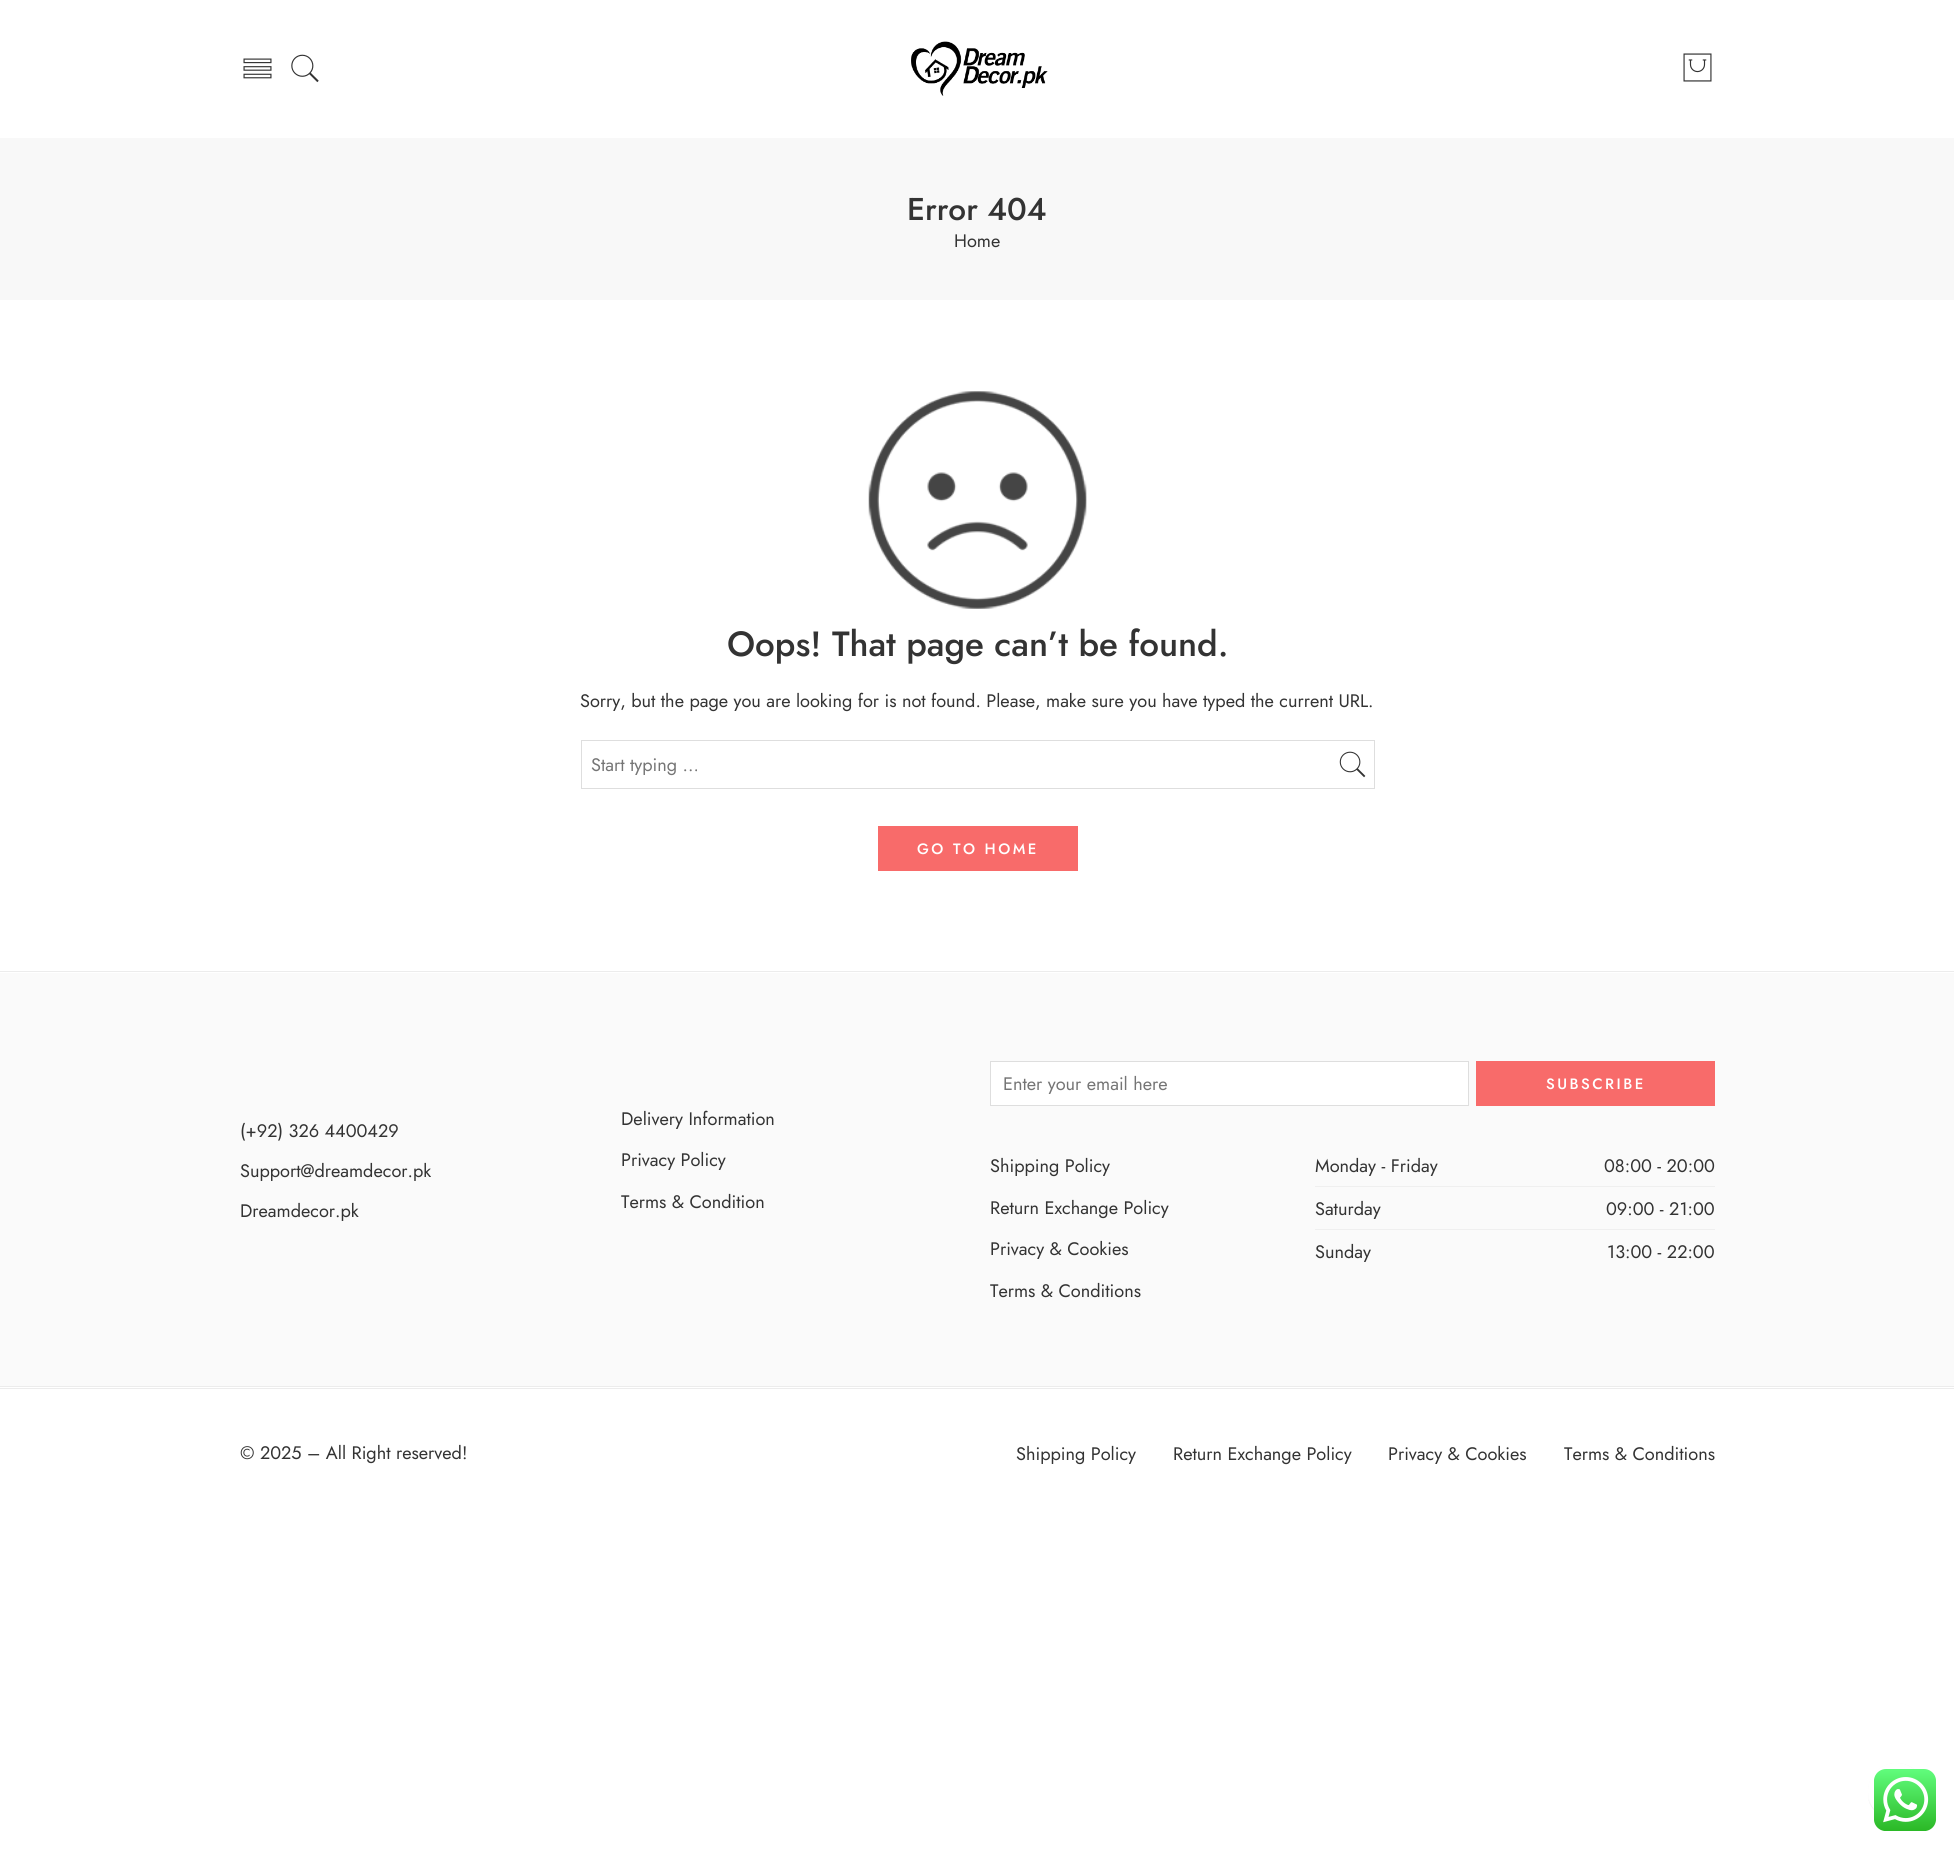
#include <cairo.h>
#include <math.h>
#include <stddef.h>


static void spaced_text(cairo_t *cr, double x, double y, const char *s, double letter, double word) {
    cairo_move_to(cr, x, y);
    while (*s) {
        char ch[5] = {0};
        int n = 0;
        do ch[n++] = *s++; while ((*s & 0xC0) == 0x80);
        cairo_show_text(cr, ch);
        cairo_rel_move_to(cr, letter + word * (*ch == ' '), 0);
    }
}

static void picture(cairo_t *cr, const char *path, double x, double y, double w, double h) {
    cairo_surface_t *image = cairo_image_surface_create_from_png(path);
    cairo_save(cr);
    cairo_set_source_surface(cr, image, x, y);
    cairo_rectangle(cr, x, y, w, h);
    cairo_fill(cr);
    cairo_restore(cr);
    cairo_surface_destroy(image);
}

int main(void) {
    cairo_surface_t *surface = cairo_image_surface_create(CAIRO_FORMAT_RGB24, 1954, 1850);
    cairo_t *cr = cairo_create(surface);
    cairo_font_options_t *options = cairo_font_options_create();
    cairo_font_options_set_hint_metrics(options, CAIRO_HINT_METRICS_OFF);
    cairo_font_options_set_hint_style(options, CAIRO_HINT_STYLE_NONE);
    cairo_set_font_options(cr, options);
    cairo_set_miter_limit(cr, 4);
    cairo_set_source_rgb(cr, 1, 1, 1);
    cairo_paint(cr);
    picture(cr, "img1.png", 243, 58, 29, 21);
    picture(cr, "img2.png", 291, 54, 28, 29);
    picture(cr, "img3.png", 911, 41, 137, 55);
    picture(cr, "img4.png", 1683, 53, 29, 29);
    cairo_set_source_rgb(cr, 0.969, 0.969, 0.969);
    cairo_rectangle(cr, 0, 138, 1954, 162);
    cairo_fill(cr);
    cairo_select_font_face(cr, "Jost Medium", CAIRO_FONT_SLANT_NORMAL, CAIRO_FONT_WEIGHT_NORMAL);
    cairo_set_font_size(cr, 31.5);
    cairo_set_source_rgb(cr, 0.2, 0.2, 0.2);
    cairo_move_to(cr, 907, 220);
    cairo_show_text(cr, "Error 404");
    cairo_select_font_face(cr, "Jost", CAIRO_FONT_SLANT_NORMAL, CAIRO_FONT_WEIGHT_NORMAL);
    cairo_set_font_size(cr, 18.1);
    cairo_move_to(cr, 954, 247);
    cairo_show_text(cr, "Home");
    picture(cr, "img5.png", 868, 391, 219, 218);
    cairo_select_font_face(cr, "Jost Medium", CAIRO_FONT_SLANT_NORMAL, CAIRO_FONT_WEIGHT_NORMAL);
    cairo_set_font_size(cr, 35);
    cairo_move_to(cr, 727, 656);
    cairo_show_text(cr, "Oops! That page can’t be found.");
    cairo_select_font_face(cr, "Jost", CAIRO_FONT_SLANT_NORMAL, CAIRO_FONT_WEIGHT_NORMAL);
    cairo_set_font_size(cr, 18.1);
    cairo_move_to(cr, 580, 707);
    cairo_show_text(cr, "Sorry, but the page you are looking for is not found. Please, make sure you have typed the current URL.");
    cairo_rectangle(cr, 581.5, 740.5, 793, 48);
    cairo_set_source_rgb(cr, 0.871, 0.871, 0.871);
    cairo_set_line_width(cr, 1);
    cairo_stroke(cr);
    cairo_set_source_rgb(cr, 0.459, 0.459, 0.459);
    cairo_move_to(cr, 591, 771);
    cairo_show_text(cr, "Start typing ...");
    picture(cr, "img6.png", 1339, 751, 27, 27);
    cairo_set_source_rgb(cr, 0.969, 0.42, 0.416);
    cairo_rectangle(cr, 878, 826, 200, 45);
    cairo_fill(cr);
    cairo_select_font_face(cr, "Jost Medium", CAIRO_FONT_SLANT_NORMAL, CAIRO_FONT_WEIGHT_NORMAL);
    cairo_set_font_size(cr, 15);
    cairo_set_source_rgb(cr, 1, 1, 1);
    spaced_text(cr, 917, 854, "GO TO HOME", 2.5, 0);
    cairo_set_source_rgb(cr, 0.98, 0.98, 0.98);
    cairo_rectangle(cr, 0, 973, 1954, 413);
    cairo_fill(cr);
    cairo_set_source_rgb(cr, 0.925, 0.925, 0.925);
    cairo_rectangle(cr, 0, 971, 1954, 1);
    cairo_fill(cr);
    cairo_rectangle(cr, 0, 1386, 1954, 1);
    cairo_fill(cr);
    cairo_select_font_face(cr, "Jost", CAIRO_FONT_SLANT_NORMAL, CAIRO_FONT_WEIGHT_NORMAL);
    cairo_set_font_size(cr, 18.1);
    cairo_set_source_rgb(cr, 0.2, 0.2, 0.2);
    cairo_move_to(cr, 240, 1137);
    cairo_show_text(cr, "(+92) 326 4400429");
    cairo_move_to(cr, 240, 1177);
    cairo_show_text(cr, "Support@dreamdecor.pk");
    cairo_move_to(cr, 240, 1217);
    cairo_show_text(cr, "Dreamdecor.pk");
    cairo_move_to(cr, 621, 1125);
    cairo_show_text(cr, "Delivery Information");
    cairo_move_to(cr, 621, 1166);
    cairo_show_text(cr, "Privacy Policy");
    cairo_move_to(cr, 621, 1208);
    cairo_show_text(cr, "Terms & Condition");
    cairo_set_source_rgb(cr, 1, 1, 1);
    cairo_rectangle(cr, 990.5, 1061.5, 478, 44);
    cairo_fill_preserve(cr);
    cairo_set_source_rgb(cr, 0.871, 0.871, 0.871);
    cairo_stroke(cr);
    cairo_set_source_rgb(cr, 0.459, 0.459, 0.459);
    cairo_move_to(cr, 1003, 1090);
    cairo_show_text(cr, "Enter your email here");
    cairo_set_source_rgb(cr, 0.969, 0.42, 0.416);
    cairo_rectangle(cr, 1476, 1061, 239, 45);
    cairo_fill(cr);
    cairo_select_font_face(cr, "Jost Medium", CAIRO_FONT_SLANT_NORMAL, CAIRO_FONT_WEIGHT_NORMAL);
    cairo_set_font_size(cr, 15);
    cairo_set_source_rgb(cr, 1, 1, 1);
    spaced_text(cr, 1546, 1089, "SUBSCRIBE", 2.5, 0);
    cairo_select_font_face(cr, "Jost", CAIRO_FONT_SLANT_NORMAL, CAIRO_FONT_WEIGHT_NORMAL);
    cairo_set_font_size(cr, 18.1);
    cairo_set_source_rgb(cr, 0.2, 0.2, 0.2);
    cairo_move_to(cr, 990, 1172);
    cairo_show_text(cr, "Shipping Policy");
    cairo_move_to(cr, 990, 1214);
    cairo_show_text(cr, "Return Exchange Policy");
    cairo_move_to(cr, 990, 1255);
    cairo_show_text(cr, "Privacy & Cookies");
    cairo_move_to(cr, 990, 1297);
    cairo_show_text(cr, "Terms & Conditions");
    cairo_set_source_rgb(cr, 0.937, 0.937, 0.937);
    cairo_rectangle(cr, 1315, 1186, 400, 1);
    cairo_fill(cr);
    cairo_set_source_rgb(cr, 0.2, 0.2, 0.2);
    cairo_move_to(cr, 1315, 1172);
    cairo_show_text(cr, "Monday - Friday");
    cairo_move_to(cr, 1604, 1172);
    cairo_show_text(cr, "08:00 - 20:00");
    cairo_set_source_rgb(cr, 0.937, 0.937, 0.937);
    cairo_rectangle(cr, 1315, 1229, 400, 1);
    cairo_fill(cr);
    cairo_set_source_rgb(cr, 0.2, 0.2, 0.2);
    cairo_move_to(cr, 1315, 1215);
    cairo_show_text(cr, "Saturday");
    cairo_move_to(cr, 1606, 1215);
    cairo_show_text(cr, "09:00 - 21:00");
    cairo_move_to(cr, 1315, 1258);
    cairo_show_text(cr, "Sunday");
    cairo_move_to(cr, 1607, 1258);
    cairo_show_text(cr, "13:00 - 22:00");
    cairo_set_source_rgb(cr, 0.925, 0.925, 0.925);
    cairo_rectangle(cr, 0, 1388, 1954, 1);
    cairo_fill(cr);
    cairo_set_source_rgb(cr, 0.2, 0.2, 0.2);
    cairo_move_to(cr, 240, 1459);
    cairo_show_text(cr, "© 2025 – All Right reserved!");
    cairo_move_to(cr, 1016, 1460);
    cairo_show_text(cr, "Shipping Policy");
    cairo_move_to(cr, 1173, 1460);
    cairo_show_text(cr, "Return Exchange Policy");
    cairo_move_to(cr, 1388, 1460);
    cairo_show_text(cr, "Privacy & Cookies");
    cairo_move_to(cr, 1564, 1460);
    cairo_show_text(cr, "Terms & Conditions");
    cairo_new_path(cr);
    cairo_arc(cr, 1896.5, 1791.5, 28.2, 0, 2 * M_PI);
    cairo_set_source_rgb(cr, 0.969, 0.969, 0.969);
    cairo_set_line_width(cr, 0.6);
    cairo_stroke(cr);
    cairo_set_source_rgba(cr, 0, 0, 0, 0.08);
    cairo_new_path(cr);
    cairo_move_to(cr, 1868, 1798);
    cairo_curve_to(cr, 1869, 1804, 1873, 1810, 1878, 1814);
    cairo_curve_to(cr, 1897, 1831, 1927, 1814, 1924, 1789);
    cairo_curve_to(cr, 1926, 1823, 1877, 1830, 1868, 1798);
    cairo_close_path(cr);
    cairo_fill(cr);
    cairo_set_source_rgb(cr, 1, 1, 1);
    cairo_arc(cr, 1896, 1791, 28, 0, 2 * M_PI);
    cairo_fill(cr);
    picture(cr, "img7.png", 1874, 1769, 62, 62);
    cairo_surface_write_to_png(surface, "page.png");
    cairo_font_options_destroy(options);
    cairo_destroy(cr);
    cairo_surface_destroy(surface);
    return 0;
}
